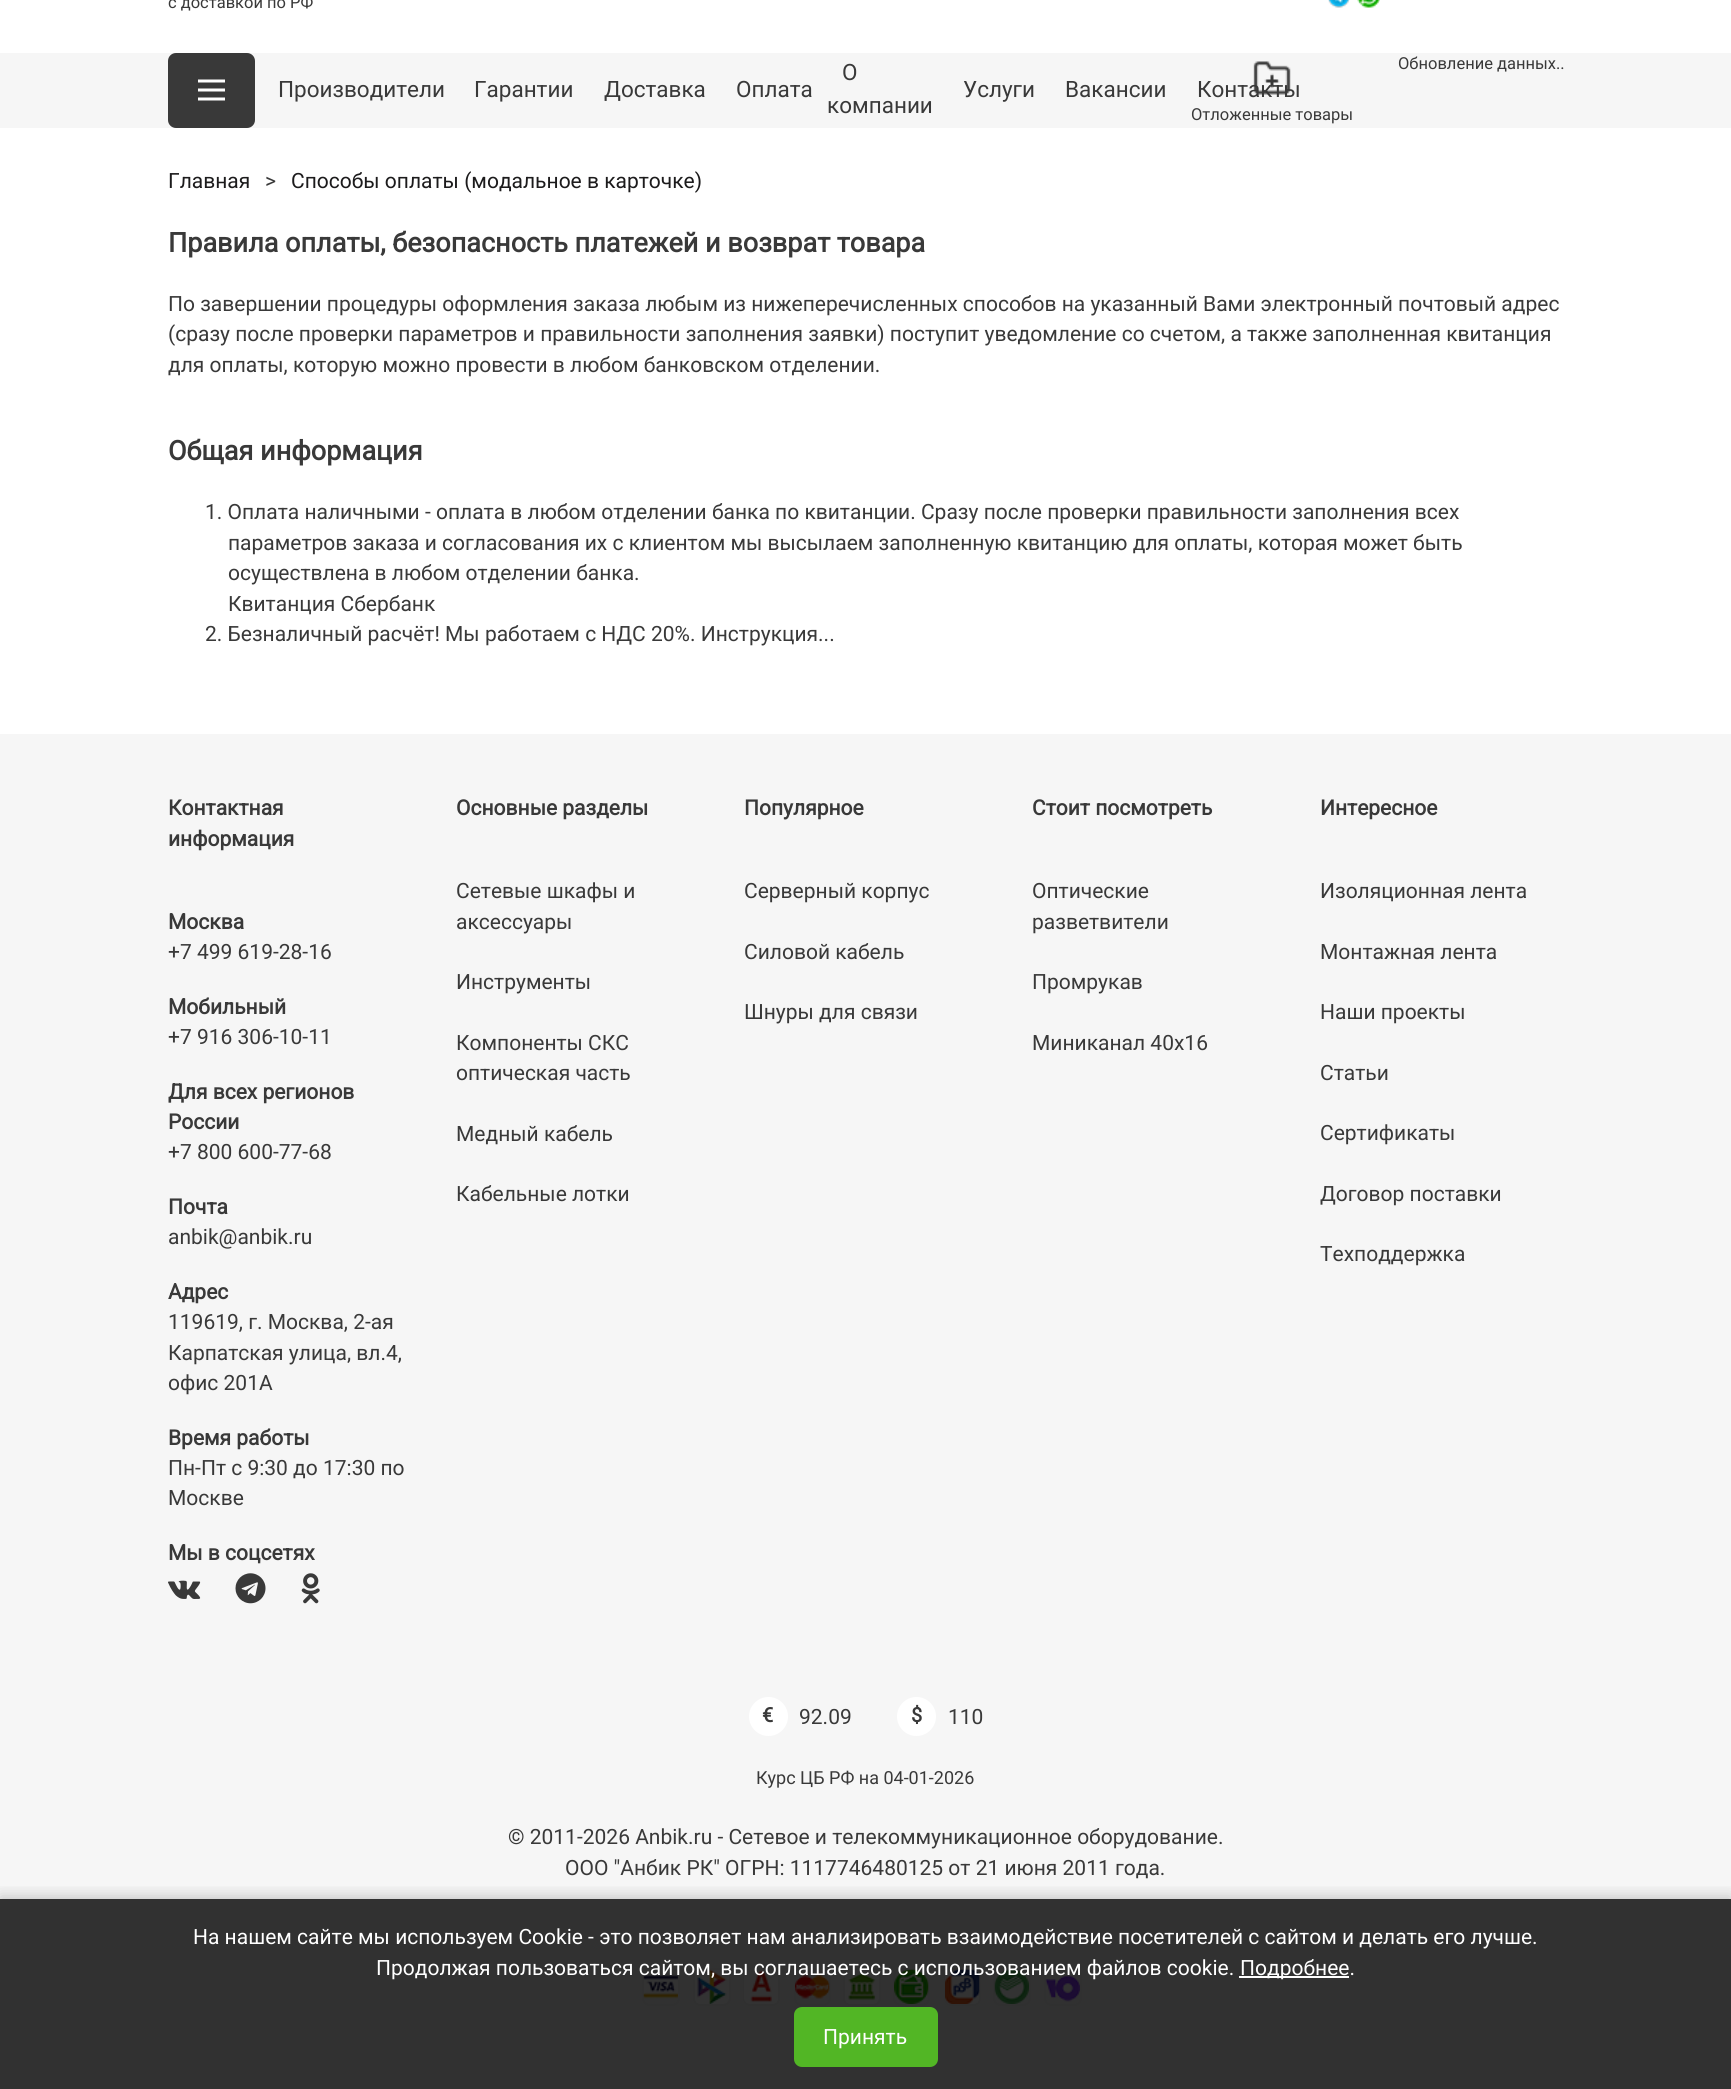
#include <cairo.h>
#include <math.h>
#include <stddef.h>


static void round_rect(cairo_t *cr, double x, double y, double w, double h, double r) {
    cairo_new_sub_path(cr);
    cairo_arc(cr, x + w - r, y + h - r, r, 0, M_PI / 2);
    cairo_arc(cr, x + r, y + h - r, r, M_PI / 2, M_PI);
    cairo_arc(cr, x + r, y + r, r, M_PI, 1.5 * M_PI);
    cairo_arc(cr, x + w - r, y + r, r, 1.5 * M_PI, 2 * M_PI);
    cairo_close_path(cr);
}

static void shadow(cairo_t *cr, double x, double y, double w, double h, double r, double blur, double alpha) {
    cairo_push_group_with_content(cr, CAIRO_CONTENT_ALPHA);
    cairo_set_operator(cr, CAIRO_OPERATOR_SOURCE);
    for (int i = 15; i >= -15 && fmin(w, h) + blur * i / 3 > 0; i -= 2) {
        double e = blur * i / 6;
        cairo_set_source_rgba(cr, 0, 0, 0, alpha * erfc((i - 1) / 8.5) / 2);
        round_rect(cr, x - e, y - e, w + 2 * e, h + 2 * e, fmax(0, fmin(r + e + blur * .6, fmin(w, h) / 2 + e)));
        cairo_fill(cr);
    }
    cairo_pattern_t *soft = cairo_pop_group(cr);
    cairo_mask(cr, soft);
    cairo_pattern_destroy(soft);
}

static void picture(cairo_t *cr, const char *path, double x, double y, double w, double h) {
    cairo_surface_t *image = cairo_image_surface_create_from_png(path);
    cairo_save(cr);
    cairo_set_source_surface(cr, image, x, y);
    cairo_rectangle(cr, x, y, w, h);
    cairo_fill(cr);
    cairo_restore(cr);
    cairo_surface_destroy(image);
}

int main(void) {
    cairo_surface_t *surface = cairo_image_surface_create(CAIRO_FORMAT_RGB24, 1731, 2089);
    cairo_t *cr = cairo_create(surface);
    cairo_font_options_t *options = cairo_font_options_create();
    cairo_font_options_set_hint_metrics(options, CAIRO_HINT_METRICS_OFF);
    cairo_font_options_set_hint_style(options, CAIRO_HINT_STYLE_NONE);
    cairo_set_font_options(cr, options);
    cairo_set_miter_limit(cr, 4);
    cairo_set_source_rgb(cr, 1, 1, 1);
    cairo_paint(cr);
    cairo_select_font_face(cr, "Roboto", CAIRO_FONT_SLANT_NORMAL, CAIRO_FONT_WEIGHT_NORMAL);
    cairo_set_font_size(cr, 16.5);
    cairo_set_source_rgb(cr, 0.224, 0.224, 0.224);
    cairo_move_to(cr, 168, 8);
    cairo_show_text(cr, "с доставкой по РФ");
    picture(cr, "img1.png", 1328, 0, 22, 8);
    picture(cr, "img2.png", 1357, 0, 23, 8);
    cairo_set_source_rgb(cr, 0.961, 0.961, 0.961);
    cairo_rectangle(cr, 0, 53, 1731, 75);
    cairo_fill(cr);
    cairo_set_source_rgb(cr, 0.224, 0.224, 0.224);
    round_rect(cr, 168, 53, 87, 75, 8);
    cairo_fill(cr);
    picture(cr, "img3.png", 198, 79, 27, 22);
    cairo_set_font_size(cr, 22.5);
    cairo_move_to(cr, 278, 97);
    cairo_show_text(cr, "Производители");
    cairo_move_to(cr, 474, 97);
    cairo_show_text(cr, "Гарантии");
    cairo_move_to(cr, 604, 97);
    cairo_show_text(cr, "Доставка");
    cairo_move_to(cr, 736, 97);
    cairo_show_text(cr, "Оплата");
    cairo_move_to(cr, 842, 80);
    cairo_show_text(cr, "О");
    cairo_move_to(cr, 827, 113);
    cairo_show_text(cr, "компании");
    cairo_move_to(cr, 963, 97);
    cairo_show_text(cr, "Услуги");
    cairo_move_to(cr, 1065, 97);
    cairo_show_text(cr, "Вакансии");
    cairo_move_to(cr, 1197, 97);
    cairo_show_text(cr, "Контакты");
    cairo_set_font_size(cr, 16.5);
    cairo_move_to(cr, 1398, 69);
    cairo_show_text(cr, "Обновление данных..");
    picture(cr, "img4.png", 1253, 61, 38, 34);
    cairo_move_to(cr, 1191, 120);
    cairo_show_text(cr, "Отложенные товары");
    cairo_set_font_size(cr, 21);
    cairo_set_source_rgb(cr, 0.11, 0.106, 0.11);
    cairo_move_to(cr, 168, 188);
    cairo_show_text(cr, "Главная");
    cairo_set_source_rgb(cr, 0.224, 0.224, 0.224);
    cairo_move_to(cr, 265, 188);
    cairo_show_text(cr, ">");
    cairo_set_source_rgb(cr, 0.11, 0.106, 0.11);
    cairo_move_to(cr, 291, 188);
    cairo_show_text(cr, "Способы оплаты (модальное в карточке)");
    cairo_select_font_face(cr, "Roboto", CAIRO_FONT_SLANT_NORMAL, CAIRO_FONT_WEIGHT_BOLD);
    cairo_set_font_size(cr, 27);
    cairo_set_source_rgb(cr, 0.224, 0.224, 0.224);
    cairo_move_to(cr, 168, 252);
    cairo_show_text(cr, "Правила оплаты, безопасность платежей и возврат товара");
    cairo_select_font_face(cr, "Roboto", CAIRO_FONT_SLANT_NORMAL, CAIRO_FONT_WEIGHT_NORMAL);
    cairo_set_font_size(cr, 21);
    cairo_move_to(cr, 168, 311);
    cairo_show_text(cr, "По завершении процедуры оформления заказа любым из нижеперечисленных способов на указанный Вами электронный почтовый адрес");
    cairo_move_to(cr, 168, 341);
    cairo_show_text(cr, "(сразу после проверки параметров и правильности заполнения заявки) поступит уведомление со счетом, а также заполненная квитанция");
    cairo_move_to(cr, 168, 372);
    cairo_show_text(cr, "для оплаты, которую можно провести в любом банковском отделении.");
    cairo_select_font_face(cr, "Roboto", CAIRO_FONT_SLANT_NORMAL, CAIRO_FONT_WEIGHT_BOLD);
    cairo_set_font_size(cr, 27);
    cairo_move_to(cr, 168, 460);
    cairo_show_text(cr, "Общая информация");
    cairo_select_font_face(cr, "Roboto", CAIRO_FONT_SLANT_NORMAL, CAIRO_FONT_WEIGHT_NORMAL);
    cairo_set_font_size(cr, 21);
    cairo_move_to(cr, 205, 519);
    cairo_show_text(cr, "1. Оплата наличными - оплата в любом отделении банка по квитанции. Сразу после проверки правильности заполнения всех");
    cairo_move_to(cr, 228, 550);
    cairo_show_text(cr, "параметров заказа и согласования их с клиентом мы высылаем заполненную квитанцию для оплаты, которая может быть");
    cairo_move_to(cr, 228, 580);
    cairo_show_text(cr, "осуществлена в любом отделении банка.");
    cairo_move_to(cr, 228, 611);
    cairo_show_text(cr, "Квитанция Сбербанк");
    cairo_move_to(cr, 205, 641);
    cairo_show_text(cr, "2. Безналичный расчёт! Мы работаем с НДС 20%. Инструкция...");
    cairo_set_source_rgb(cr, 0.961, 0.961, 0.961);
    cairo_rectangle(cr, 0, 734, 1731, 1355);
    cairo_fill(cr);
    cairo_select_font_face(cr, "Roboto", CAIRO_FONT_SLANT_NORMAL, CAIRO_FONT_WEIGHT_BOLD);
    cairo_set_source_rgb(cr, 0.224, 0.224, 0.224);
    cairo_move_to(cr, 168, 815);
    cairo_show_text(cr, "Контактная");
    cairo_move_to(cr, 168, 846);
    cairo_show_text(cr, "информация");
    cairo_move_to(cr, 168, 929);
    cairo_show_text(cr, "Москва");
    cairo_select_font_face(cr, "Roboto", CAIRO_FONT_SLANT_NORMAL, CAIRO_FONT_WEIGHT_NORMAL);
    cairo_move_to(cr, 168, 959);
    cairo_show_text(cr, "+7 499 619-28-16");
    cairo_select_font_face(cr, "Roboto", CAIRO_FONT_SLANT_NORMAL, CAIRO_FONT_WEIGHT_BOLD);
    cairo_move_to(cr, 168, 1014);
    cairo_show_text(cr, "Мобильный");
    cairo_select_font_face(cr, "Roboto", CAIRO_FONT_SLANT_NORMAL, CAIRO_FONT_WEIGHT_NORMAL);
    cairo_move_to(cr, 168, 1044);
    cairo_show_text(cr, "+7 916 306-10-11");
    cairo_select_font_face(cr, "Roboto", CAIRO_FONT_SLANT_NORMAL, CAIRO_FONT_WEIGHT_BOLD);
    cairo_move_to(cr, 168, 1099);
    cairo_show_text(cr, "Для всех регионов");
    cairo_move_to(cr, 168, 1129);
    cairo_show_text(cr, "России");
    cairo_select_font_face(cr, "Roboto", CAIRO_FONT_SLANT_NORMAL, CAIRO_FONT_WEIGHT_NORMAL);
    cairo_move_to(cr, 168, 1159);
    cairo_show_text(cr, "+7 800 600-77-68");
    cairo_select_font_face(cr, "Roboto", CAIRO_FONT_SLANT_NORMAL, CAIRO_FONT_WEIGHT_BOLD);
    cairo_move_to(cr, 168, 1214);
    cairo_show_text(cr, "Почта");
    cairo_select_font_face(cr, "Roboto", CAIRO_FONT_SLANT_NORMAL, CAIRO_FONT_WEIGHT_NORMAL);
    cairo_move_to(cr, 168, 1244);
    cairo_show_text(cr, "anbik@anbik.ru");
    cairo_select_font_face(cr, "Roboto", CAIRO_FONT_SLANT_NORMAL, CAIRO_FONT_WEIGHT_BOLD);
    cairo_move_to(cr, 168, 1299);
    cairo_show_text(cr, "Адрес");
    cairo_select_font_face(cr, "Roboto", CAIRO_FONT_SLANT_NORMAL, CAIRO_FONT_WEIGHT_NORMAL);
    cairo_move_to(cr, 168, 1329);
    cairo_show_text(cr, "119619, г. Москва, 2-ая");
    cairo_move_to(cr, 168, 1360);
    cairo_show_text(cr, "Карпатская улица, вл.4,");
    cairo_move_to(cr, 168, 1390);
    cairo_show_text(cr, "офис 201А");
    cairo_select_font_face(cr, "Roboto", CAIRO_FONT_SLANT_NORMAL, CAIRO_FONT_WEIGHT_BOLD);
    cairo_move_to(cr, 168, 1445);
    cairo_show_text(cr, "Время работы");
    cairo_select_font_face(cr, "Roboto", CAIRO_FONT_SLANT_NORMAL, CAIRO_FONT_WEIGHT_NORMAL);
    cairo_move_to(cr, 168, 1475);
    cairo_show_text(cr, "Пн-Пт с 9:30 до 17:30 по");
    cairo_move_to(cr, 168, 1505);
    cairo_show_text(cr, "Москве");
    cairo_select_font_face(cr, "Roboto", CAIRO_FONT_SLANT_NORMAL, CAIRO_FONT_WEIGHT_BOLD);
    cairo_move_to(cr, 168, 1560);
    cairo_show_text(cr, "Мы в соцсетях");
    picture(cr, "img5.png", 168, 1580, 33, 19);
    picture(cr, "img6.png", 235, 1573, 31, 31);
    picture(cr, "img7.png", 301, 1573, 19, 31);
    cairo_move_to(cr, 456, 815);
    cairo_show_text(cr, "Основные разделы");
    cairo_select_font_face(cr, "Roboto", CAIRO_FONT_SLANT_NORMAL, CAIRO_FONT_WEIGHT_NORMAL);
    cairo_move_to(cr, 456, 898);
    cairo_show_text(cr, "Сетевые шкафы и");
    cairo_move_to(cr, 456, 929);
    cairo_show_text(cr, "аксессуары");
    cairo_move_to(cr, 456, 989);
    cairo_show_text(cr, "Инструменты");
    cairo_move_to(cr, 456, 1050);
    cairo_show_text(cr, "Компоненты СКС");
    cairo_move_to(cr, 456, 1080);
    cairo_show_text(cr, "оптическая часть");
    cairo_move_to(cr, 456, 1141);
    cairo_show_text(cr, "Медный кабель");
    cairo_move_to(cr, 456, 1201);
    cairo_show_text(cr, "Кабельные лотки");
    cairo_select_font_face(cr, "Roboto", CAIRO_FONT_SLANT_NORMAL, CAIRO_FONT_WEIGHT_BOLD);
    cairo_move_to(cr, 744, 815);
    cairo_show_text(cr, "Популярное");
    cairo_select_font_face(cr, "Roboto", CAIRO_FONT_SLANT_NORMAL, CAIRO_FONT_WEIGHT_NORMAL);
    cairo_move_to(cr, 744, 898);
    cairo_show_text(cr, "Серверный корпус");
    cairo_move_to(cr, 744, 959);
    cairo_show_text(cr, "Силовой кабель");
    cairo_move_to(cr, 744, 1019);
    cairo_show_text(cr, "Шнуры для связи");
    cairo_select_font_face(cr, "Roboto", CAIRO_FONT_SLANT_NORMAL, CAIRO_FONT_WEIGHT_BOLD);
    cairo_move_to(cr, 1032, 815);
    cairo_show_text(cr, "Стоит посмотреть");
    cairo_select_font_face(cr, "Roboto", CAIRO_FONT_SLANT_NORMAL, CAIRO_FONT_WEIGHT_NORMAL);
    cairo_move_to(cr, 1032, 898);
    cairo_show_text(cr, "Оптические");
    cairo_move_to(cr, 1032, 929);
    cairo_show_text(cr, "разветвители");
    cairo_move_to(cr, 1032, 989);
    cairo_show_text(cr, "Промрукав");
    cairo_move_to(cr, 1032, 1050);
    cairo_show_text(cr, "Миниканал 40х16");
    cairo_select_font_face(cr, "Roboto", CAIRO_FONT_SLANT_NORMAL, CAIRO_FONT_WEIGHT_BOLD);
    cairo_move_to(cr, 1320, 815);
    cairo_show_text(cr, "Интересное");
    cairo_select_font_face(cr, "Roboto", CAIRO_FONT_SLANT_NORMAL, CAIRO_FONT_WEIGHT_NORMAL);
    cairo_move_to(cr, 1320, 898);
    cairo_show_text(cr, "Изоляционная лента");
    cairo_move_to(cr, 1320, 959);
    cairo_show_text(cr, "Монтажная лента");
    cairo_move_to(cr, 1320, 1019);
    cairo_show_text(cr, "Наши проекты");
    cairo_move_to(cr, 1320, 1080);
    cairo_show_text(cr, "Статьи");
    cairo_move_to(cr, 1320, 1140);
    cairo_show_text(cr, "Сертификаты");
    cairo_move_to(cr, 1320, 1201);
    cairo_show_text(cr, "Договор поставки");
    cairo_move_to(cr, 1320, 1261);
    cairo_show_text(cr, "Техподдержка");
    cairo_set_source_rgb(cr, 1, 1, 1);
    cairo_new_path(cr);
    cairo_arc(cr, 768.5, 1716.5, 19.5, 0, 2 * M_PI);
    cairo_fill(cr);
    cairo_select_font_face(cr, "Roboto", CAIRO_FONT_SLANT_NORMAL, CAIRO_FONT_WEIGHT_BOLD);
    cairo_set_font_size(cr, 20);
    cairo_set_source_rgb(cr, 0.224, 0.224, 0.224);
    cairo_move_to(cr, 762, 1722);
    cairo_show_text(cr, "€");
    cairo_select_font_face(cr, "Roboto", CAIRO_FONT_SLANT_NORMAL, CAIRO_FONT_WEIGHT_NORMAL);
    cairo_set_font_size(cr, 21);
    cairo_move_to(cr, 799, 1724);
    cairo_show_text(cr, "92.09");
    cairo_set_source_rgb(cr, 1, 1, 1);
    cairo_new_path(cr);
    cairo_arc(cr, 916.5, 1716.5, 19.5, 0, 2 * M_PI);
    cairo_fill(cr);
    cairo_select_font_face(cr, "Roboto", CAIRO_FONT_SLANT_NORMAL, CAIRO_FONT_WEIGHT_BOLD);
    cairo_set_font_size(cr, 20);
    cairo_set_source_rgb(cr, 0.224, 0.224, 0.224);
    cairo_move_to(cr, 911, 1722);
    cairo_show_text(cr, "$");
    cairo_select_font_face(cr, "Roboto", CAIRO_FONT_SLANT_NORMAL, CAIRO_FONT_WEIGHT_NORMAL);
    cairo_set_font_size(cr, 21);
    cairo_move_to(cr, 948, 1724);
    cairo_show_text(cr, "110");
    cairo_set_font_size(cr, 18);
    cairo_move_to(cr, 756, 1784);
    cairo_show_text(cr, "Курс ЦБ РФ на 04-01-2026");
    cairo_set_font_size(cr, 21);
    cairo_move_to(cr, 508, 1844);
    cairo_show_text(cr, "© 2011-2026 Anbik.ru - Сетевое и телекоммуникационное оборудование.");
    cairo_move_to(cr, 565, 1875);
    cairo_show_text(cr, "ООО \"Анбик РК\" ОГРН: 1117746480125 от 21 июня 2011 года.");
    round_rect(cr, 643, 1969, 36, 36, 7);
    cairo_set_source_rgb(cr, 0.933, 0.933, 0.933);
    cairo_stroke(cr);
    picture(cr, "img8.png", 643, 1974, 35, 25);
    round_rect(cr, 694, 1969, 36, 36, 7);
    cairo_stroke(cr);
    picture(cr, "img9.png", 694, 1969, 35, 35);
    round_rect(cr, 744, 1969, 35, 36, 7);
    cairo_stroke(cr);
    picture(cr, "img10.png", 744, 1969, 35, 35);
    round_rect(cr, 795, 1969, 35, 36, 7);
    cairo_stroke(cr);
    picture(cr, "img11.png", 795, 1974, 35, 25);
    round_rect(cr, 844, 1969, 36, 36, 7);
    cairo_stroke(cr);
    picture(cr, "img12.png", 844, 1969, 35, 35);
    round_rect(cr, 894, 1969, 35, 36, 7);
    cairo_stroke(cr);
    picture(cr, "img13.png", 894, 1969, 35, 35);
    round_rect(cr, 945, 1969, 35, 36, 7);
    cairo_stroke(cr);
    picture(cr, "img14.png", 945, 1969, 35, 35);
    round_rect(cr, 994, 1969, 36, 36, 7);
    cairo_stroke(cr);
    picture(cr, "img15.png", 994, 1969, 35, 35);
    round_rect(cr, 1045, 1969, 36, 36, 7);
    cairo_stroke(cr);
    picture(cr, "img16.png", 1045, 1975, 35, 27);
    cairo_save(cr);
    cairo_rectangle(cr, 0, 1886, 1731, 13);
    cairo_clip(cr);
    cairo_set_source_rgb(cr, 0, 0, 0);
    shadow(cr, 0, 1896, 1731, 191, 0, 7.5, 0.2);
    cairo_restore(cr);
    cairo_set_source_rgba(cr, 0, 0, 0, 0.8);
    cairo_rectangle(cr, 0, 1899, 1731, 190);
    cairo_fill(cr);
    cairo_set_source_rgb(cr, 1, 1, 1);
    cairo_move_to(cr, 193, 1944);
    cairo_show_text(cr, "На нашем сайте мы используем Cookie - это позволяет нам анализировать взаимодействие посетителей с сайтом и делать его лучше.");
    cairo_move_to(cr, 376, 1975);
    cairo_show_text(cr, "Продолжая пользоваться сайтом, вы соглашаетесь с использованием файлов cookie.");
    cairo_rectangle(cr, 1239, 1976, 110, 2);
    cairo_fill(cr);
    cairo_move_to(cr, 1240, 1975);
    cairo_show_text(cr, "Подробнее.");
    cairo_set_source_rgb(cr, 0.322, 0.714, 0.145);
    round_rect(cr, 794, 2007, 144, 60, 8);
    cairo_fill(cr);
    cairo_set_source_rgb(cr, 1, 1, 1);
    cairo_move_to(cr, 823, 2044);
    cairo_show_text(cr, "Принять");
    cairo_surface_write_to_png(surface, "page.png");
    cairo_font_options_destroy(options);
    cairo_destroy(cr);
    cairo_surface_destroy(surface);
    return 0;
}
